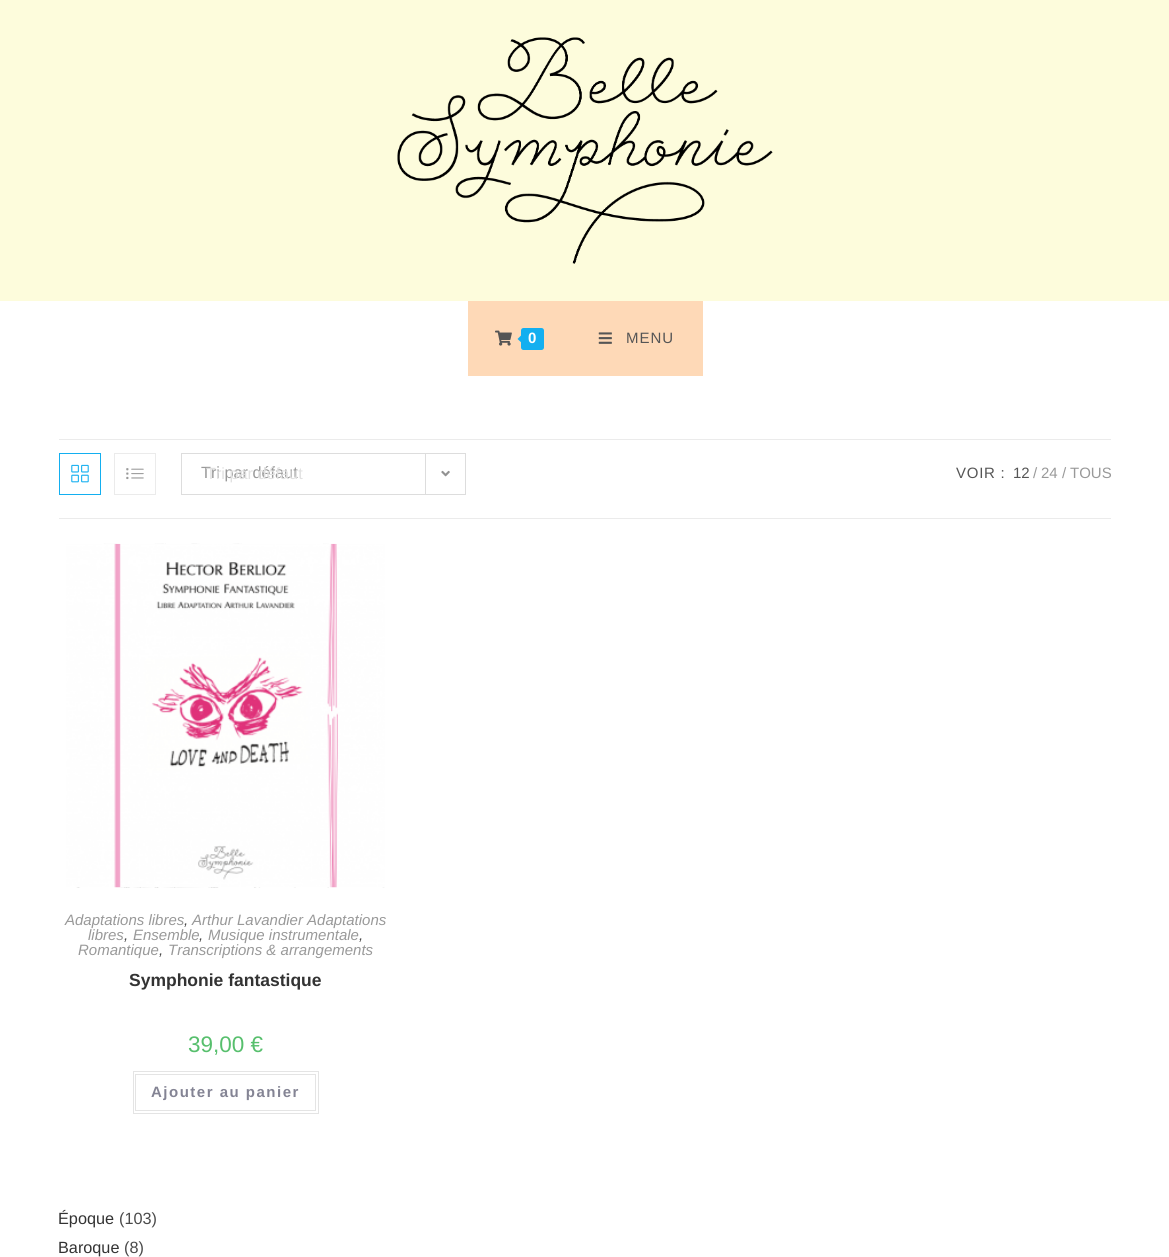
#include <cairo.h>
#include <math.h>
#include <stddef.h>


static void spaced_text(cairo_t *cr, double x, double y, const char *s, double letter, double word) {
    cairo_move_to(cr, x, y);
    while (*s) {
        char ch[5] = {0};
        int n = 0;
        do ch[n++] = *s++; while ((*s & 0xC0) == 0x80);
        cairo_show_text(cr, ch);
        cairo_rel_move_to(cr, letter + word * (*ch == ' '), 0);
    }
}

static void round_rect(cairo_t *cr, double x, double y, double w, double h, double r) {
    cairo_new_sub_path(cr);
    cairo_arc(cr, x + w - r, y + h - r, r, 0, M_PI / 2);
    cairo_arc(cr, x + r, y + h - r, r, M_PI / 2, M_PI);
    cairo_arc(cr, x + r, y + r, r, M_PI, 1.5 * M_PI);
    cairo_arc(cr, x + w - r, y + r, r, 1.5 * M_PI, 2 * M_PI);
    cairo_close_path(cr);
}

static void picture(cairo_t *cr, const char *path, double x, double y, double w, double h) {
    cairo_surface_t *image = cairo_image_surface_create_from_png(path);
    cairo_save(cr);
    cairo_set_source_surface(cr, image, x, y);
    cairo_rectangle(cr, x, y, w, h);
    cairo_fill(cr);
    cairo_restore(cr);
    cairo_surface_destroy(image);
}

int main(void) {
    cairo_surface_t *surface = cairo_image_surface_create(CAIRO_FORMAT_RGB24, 1169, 1257);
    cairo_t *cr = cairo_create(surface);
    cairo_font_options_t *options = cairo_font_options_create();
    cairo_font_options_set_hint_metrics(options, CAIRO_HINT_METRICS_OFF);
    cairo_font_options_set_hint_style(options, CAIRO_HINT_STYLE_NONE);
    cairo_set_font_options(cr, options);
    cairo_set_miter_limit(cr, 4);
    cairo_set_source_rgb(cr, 1, 1, 1);
    cairo_paint(cr);
    cairo_set_source_rgb(cr, 0.992, 0.988, 0.863);
    cairo_rectangle(cr, 0, 0, 1169, 301);
    cairo_fill(cr);
    picture(cr, "img1.png", 397, 37, 376, 227);
    cairo_set_source_rgb(cr, 0.996, 0.851, 0.718);
    cairo_rectangle(cr, 468, 301, 235, 75);
    cairo_fill(cr);
    picture(cr, "img2.png", 495, 330, 17, 16);
    cairo_set_source_rgb(cr, 0.075, 0.686, 0.941);
    round_rect(cr, 521, 328, 23, 22, 2.5);
    cairo_fill(cr);
    cairo_new_path(cr);
    cairo_move_to(cr, 524, 332.5);
    cairo_line_to(cr, 524, 345);
    cairo_line_to(cr, 517.5, 339);
    cairo_close_path(cr);
    cairo_fill(cr);
    cairo_select_font_face(cr, "Liberation Sans", CAIRO_FONT_SLANT_NORMAL, CAIRO_FONT_WEIGHT_BOLD);
    cairo_set_font_size(cr, 15);
    cairo_set_source_rgb(cr, 1, 1, 1);
    spaced_text(cr, 528, 343, "0", 1, 0);
    picture(cr, "img3.png", 598, 332, 14, 12);
    cairo_select_font_face(cr, "Liberation Sans", CAIRO_FONT_SLANT_NORMAL, CAIRO_FONT_WEIGHT_NORMAL);
    cairo_set_source_rgb(cr, 0.333, 0.333, 0.333);
    spaced_text(cr, 626, 343, "MENU", 1, 0);
    cairo_set_source_rgb(cr, 0.918, 0.918, 0.918);
    cairo_rectangle(cr, 59, 439, 1052, 1);
    cairo_fill(cr);
    cairo_rectangle(cr, 59, 518, 1052, 1);
    cairo_fill(cr);
    cairo_rectangle(cr, 59.5, 453.5, 41, 41);
    cairo_set_source_rgb(cr, 0.075, 0.686, 0.941);
    cairo_set_line_width(cr, 1);
    cairo_stroke(cr);
    picture(cr, "img4.png", 71, 464, 18, 19);
    cairo_rectangle(cr, 114.5, 453.5, 41, 41);
    cairo_set_source_rgb(cr, 0.918, 0.918, 0.918);
    cairo_stroke(cr);
    picture(cr, "img5.png", 126, 468, 18, 12);
    cairo_rectangle(cr, 181.5, 453.5, 284, 41);
    cairo_set_source_rgb(cr, 0.867, 0.867, 0.867);
    cairo_stroke(cr);
    cairo_set_font_size(cr, 16.25);
    cairo_set_source_rgb(cr, 0.6, 0.6, 0.6);
    cairo_move_to(cr, 201, 478);
    cairo_show_text(cr, "Tri par défaut");
    cairo_set_source_rgb(cr, 0.867, 0.867, 0.867);
    cairo_rectangle(cr, 425, 454, 1, 40);
    cairo_fill(cr);
    picture(cr, "img6.png", 441, 470, 9, 7);
    cairo_set_source_rgb(cr, 0.882, 0.882, 0.882);
    cairo_move_to(cr, 206, 479);
    cairo_show_text(cr, "Tri par défaut");
    cairo_set_font_size(cr, 15);
    cairo_set_source_rgb(cr, 0.333, 0.333, 0.333);
    spaced_text(cr, 956, 478, "VOIR :", 0.75, 0);
    cairo_move_to(cr, 1013, 478);
    cairo_show_text(cr, "12");
    cairo_set_source_rgb(cr, 0.6, 0.6, 0.6);
    cairo_move_to(cr, 1033, 478);
    cairo_show_text(cr, "/");
    cairo_move_to(cr, 1041, 478);
    cairo_show_text(cr, "24");
    cairo_move_to(cr, 1062, 478);
    cairo_show_text(cr, "/");
    cairo_move_to(cr, 1070, 478);
    cairo_show_text(cr, "TOUS");
    picture(cr, "img7.png", 66, 543, 319, 345);
    picture(cr, "img8.png", 66, 543, 319, 345);
    cairo_select_font_face(cr, "Liberation Sans", CAIRO_FONT_SLANT_ITALIC, CAIRO_FONT_WEIGHT_NORMAL);
    cairo_move_to(cr, 65, 925);
    cairo_show_text(cr, "Adaptations libres");
    cairo_set_source_rgb(cr, 0.29, 0.29, 0.29);
    cairo_move_to(cr, 184, 925);
    cairo_show_text(cr, ",");
    cairo_set_source_rgb(cr, 0.6, 0.6, 0.6);
    cairo_move_to(cr, 192, 925);
    cairo_show_text(cr, "Arthur Lavandier Adaptations");
    cairo_move_to(cr, 88, 940);
    cairo_show_text(cr, "libres");
    cairo_set_source_rgb(cr, 0.29, 0.29, 0.29);
    cairo_move_to(cr, 124, 940);
    cairo_show_text(cr, ",");
    cairo_set_source_rgb(cr, 0.6, 0.6, 0.6);
    cairo_move_to(cr, 133, 940);
    cairo_show_text(cr, "Ensemble");
    cairo_set_source_rgb(cr, 0.29, 0.29, 0.29);
    cairo_move_to(cr, 199, 940);
    cairo_show_text(cr, ",");
    cairo_set_source_rgb(cr, 0.6, 0.6, 0.6);
    cairo_move_to(cr, 208, 940);
    cairo_show_text(cr, "Musique instrumentale");
    cairo_set_source_rgb(cr, 0.29, 0.29, 0.29);
    cairo_move_to(cr, 359, 940);
    cairo_show_text(cr, ",");
    cairo_set_source_rgb(cr, 0.6, 0.6, 0.6);
    cairo_move_to(cr, 78, 955);
    cairo_show_text(cr, "Romantique");
    cairo_set_source_rgb(cr, 0.29, 0.29, 0.29);
    cairo_move_to(cr, 159, 955);
    cairo_show_text(cr, ",");
    cairo_set_source_rgb(cr, 0.6, 0.6, 0.6);
    cairo_move_to(cr, 168, 955);
    cairo_show_text(cr, "Transcriptions & arrangements");
    cairo_select_font_face(cr, "Liberation Sans", CAIRO_FONT_SLANT_NORMAL, CAIRO_FONT_WEIGHT_BOLD);
    cairo_set_font_size(cr, 17.5);
    cairo_set_source_rgb(cr, 0.2, 0.2, 0.2);
    cairo_move_to(cr, 129, 986);
    cairo_show_text(cr, "Symphonie fantastique");
    cairo_select_font_face(cr, "Liberation Sans", CAIRO_FONT_SLANT_NORMAL, CAIRO_FONT_WEIGHT_NORMAL);
    cairo_set_font_size(cr, 22.5);
    cairo_set_source_rgb(cr, 0.341, 0.749, 0.427);
    cairo_move_to(cr, 188, 1052);
    cairo_show_text(cr, "39,00 €");
    cairo_rectangle(cr, 133.5, 1071.5, 185, 42);
    cairo_set_source_rgb(cr, 0.894, 0.894, 0.894);
    cairo_stroke(cr);
    cairo_rectangle(cr, 135.5, 1074.5, 180, 36);
    cairo_stroke(cr);
    cairo_select_font_face(cr, "Liberation Sans", CAIRO_FONT_SLANT_NORMAL, CAIRO_FONT_WEIGHT_BOLD);
    cairo_set_font_size(cr, 15);
    cairo_set_source_rgb(cr, 0.518, 0.518, 0.58);
    spaced_text(cr, 151, 1097, "Ajouter au panier", 1.5, 0);
    cairo_select_font_face(cr, "Liberation Sans", CAIRO_FONT_SLANT_NORMAL, CAIRO_FONT_WEIGHT_NORMAL);
    cairo_set_font_size(cr, 16.25);
    cairo_set_source_rgb(cr, 0.2, 0.2, 0.2);
    cairo_move_to(cr, 58, 1224);
    cairo_show_text(cr, "Époque");
    cairo_set_source_rgb(cr, 0.29, 0.29, 0.29);
    cairo_move_to(cr, 119, 1224);
    cairo_show_text(cr, "(103)");
    cairo_set_source_rgb(cr, 0.2, 0.2, 0.2);
    cairo_move_to(cr, 58, 1253);
    cairo_show_text(cr, "Baroque");
    cairo_set_source_rgb(cr, 0.29, 0.29, 0.29);
    cairo_move_to(cr, 124, 1253);
    cairo_show_text(cr, "(8)");
    cairo_surface_write_to_png(surface, "page.png");
    cairo_font_options_destroy(options);
    cairo_destroy(cr);
    cairo_surface_destroy(surface);
    return 0;
}
